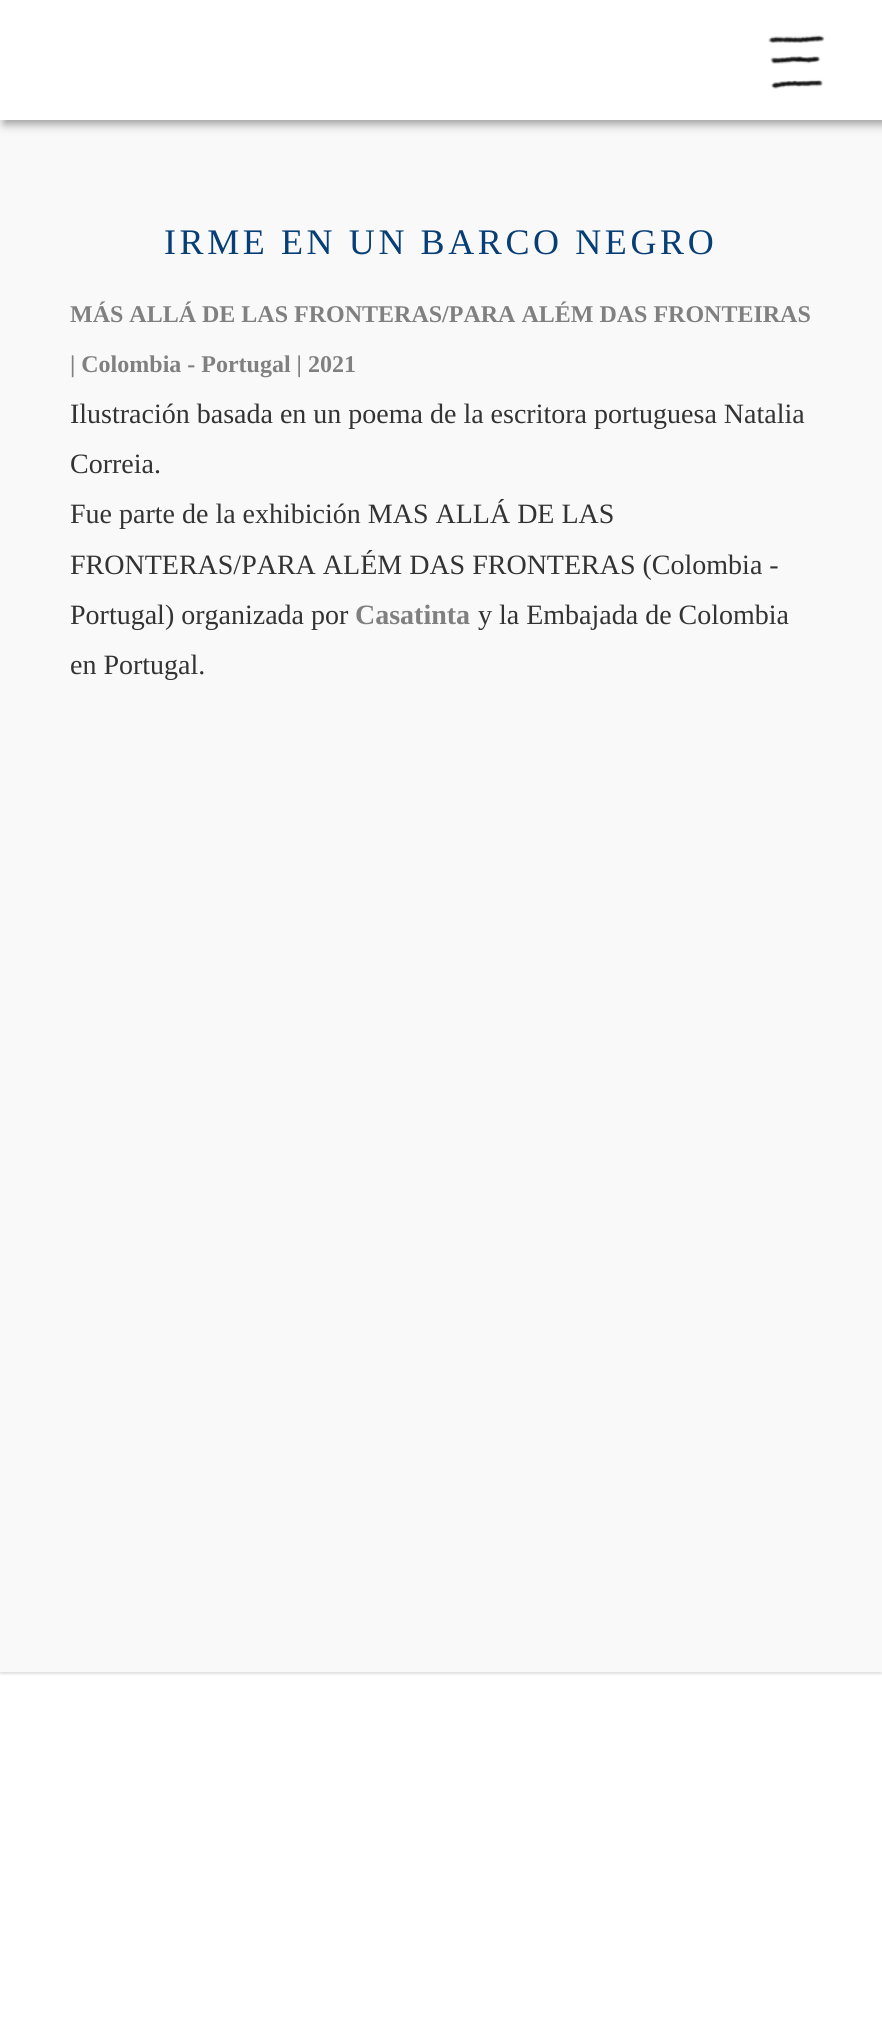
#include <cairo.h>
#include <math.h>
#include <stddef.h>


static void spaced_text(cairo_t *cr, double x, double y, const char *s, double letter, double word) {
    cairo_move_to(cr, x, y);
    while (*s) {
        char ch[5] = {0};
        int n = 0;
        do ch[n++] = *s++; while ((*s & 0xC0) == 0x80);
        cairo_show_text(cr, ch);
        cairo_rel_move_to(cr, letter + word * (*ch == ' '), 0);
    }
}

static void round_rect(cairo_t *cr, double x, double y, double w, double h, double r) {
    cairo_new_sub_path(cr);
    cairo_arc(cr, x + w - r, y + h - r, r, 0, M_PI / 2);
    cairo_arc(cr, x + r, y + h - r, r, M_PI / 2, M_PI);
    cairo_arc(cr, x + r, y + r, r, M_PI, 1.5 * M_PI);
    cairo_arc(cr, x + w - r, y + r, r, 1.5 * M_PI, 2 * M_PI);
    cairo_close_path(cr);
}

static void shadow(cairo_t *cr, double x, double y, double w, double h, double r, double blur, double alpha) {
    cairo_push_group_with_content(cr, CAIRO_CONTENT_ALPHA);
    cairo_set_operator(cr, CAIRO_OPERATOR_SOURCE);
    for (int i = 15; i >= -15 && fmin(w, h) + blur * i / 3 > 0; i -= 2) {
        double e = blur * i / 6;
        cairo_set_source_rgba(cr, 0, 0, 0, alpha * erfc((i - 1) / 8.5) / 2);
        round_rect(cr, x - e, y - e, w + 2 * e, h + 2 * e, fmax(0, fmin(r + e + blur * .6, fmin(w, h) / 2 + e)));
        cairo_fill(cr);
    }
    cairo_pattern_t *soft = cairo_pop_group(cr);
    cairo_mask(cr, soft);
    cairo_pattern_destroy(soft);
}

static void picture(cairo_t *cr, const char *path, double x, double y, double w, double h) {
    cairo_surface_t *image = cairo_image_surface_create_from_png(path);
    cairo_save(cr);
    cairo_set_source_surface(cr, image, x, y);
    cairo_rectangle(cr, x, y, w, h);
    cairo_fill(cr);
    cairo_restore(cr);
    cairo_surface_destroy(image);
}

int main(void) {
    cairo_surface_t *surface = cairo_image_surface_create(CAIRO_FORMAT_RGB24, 882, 2019);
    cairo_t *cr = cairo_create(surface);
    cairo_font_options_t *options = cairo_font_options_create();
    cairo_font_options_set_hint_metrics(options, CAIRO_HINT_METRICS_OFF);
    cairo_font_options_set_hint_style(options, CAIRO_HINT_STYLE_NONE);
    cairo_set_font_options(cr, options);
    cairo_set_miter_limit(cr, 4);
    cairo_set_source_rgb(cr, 1, 1, 1);
    cairo_paint(cr);
    cairo_set_source_rgb(cr, 0.973, 0.973, 0.973);
    cairo_rectangle(cr, 0, 120, 882, 1324);
    cairo_fill(cr);
    cairo_set_source_rgb(cr, 0.6, 0.6, 0.6);
    shadow(cr, 4, 4, 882, 120, 0, 5, 1);
    cairo_set_source_rgb(cr, 1, 1, 1);
    cairo_rectangle(cr, 0, 0, 882, 120);
    cairo_fill(cr);
    picture(cr, "img1.png", 768, 35, 57, 54);
    cairo_select_font_face(cr, "Liberation Serif", CAIRO_FONT_SLANT_NORMAL, CAIRO_FONT_WEIGHT_NORMAL);
    cairo_set_font_size(cr, 36);
    cairo_set_source_rgb(cr, 0.027, 0.243, 0.459);
    spaced_text(cr, 164, 254, "IRME EN UN BARCO NEGRO", 3.6, 0);
    cairo_select_font_face(cr, "Liberation Serif", CAIRO_FONT_SLANT_NORMAL, CAIRO_FONT_WEIGHT_BOLD);
    cairo_set_font_size(cr, 24);
    cairo_set_source_rgb(cr, 0.502, 0.502, 0.502);
    cairo_move_to(cr, 70, 322);
    cairo_show_text(cr, "MÁS ALLÁ DE LAS FRONTERAS/PARA ALÉM DAS FRONTEIRAS");
    cairo_move_to(cr, 70, 372);
    cairo_show_text(cr, "| Colombia - Portugal | 2021");
    cairo_select_font_face(cr, "Liberation Serif", CAIRO_FONT_SLANT_NORMAL, CAIRO_FONT_WEIGHT_NORMAL);
    cairo_set_font_size(cr, 28);
    cairo_set_source_rgb(cr, 0.2, 0.2, 0.2);
    cairo_move_to(cr, 70, 423);
    cairo_show_text(cr, "Ilustración basada en un poema de la escritora portuguesa Natalia");
    cairo_move_to(cr, 70, 473);
    cairo_show_text(cr, "Correia.");
    cairo_move_to(cr, 70, 523);
    cairo_show_text(cr, "Fue parte de la exhibición MAS ALLÁ DE LAS");
    cairo_move_to(cr, 70, 574);
    cairo_show_text(cr, "FRONTERAS/PARA ALÉM DAS FRONTERAS (Colombia -");
    cairo_move_to(cr, 70, 624);
    cairo_show_text(cr, "Portugal) organizada por");
    cairo_select_font_face(cr, "Liberation Serif", CAIRO_FONT_SLANT_NORMAL, CAIRO_FONT_WEIGHT_BOLD);
    cairo_set_source_rgb(cr, 0.502, 0.502, 0.502);
    cairo_move_to(cr, 355, 624);
    cairo_show_text(cr, "Casatinta");
    cairo_select_font_face(cr, "Liberation Serif", CAIRO_FONT_SLANT_NORMAL, CAIRO_FONT_WEIGHT_NORMAL);
    cairo_set_source_rgb(cr, 0.2, 0.2, 0.2);
    cairo_move_to(cr, 478, 624);
    cairo_show_text(cr, "y la Embajada de Colombia");
    cairo_move_to(cr, 70, 674);
    cairo_show_text(cr, "en Portugal.");
    cairo_set_source_rgb(cr, 0, 0, 0);
    shadow(cr, 0, 1446, 882, 228, 0, 1, 0.12);
    cairo_set_source_rgb(cr, 0.973, 0.973, 0.973);
    cairo_rectangle(cr, 0, 1444, 882, 228);
    cairo_fill(cr);
    cairo_surface_write_to_png(surface, "page.png");
    cairo_font_options_destroy(options);
    cairo_destroy(cr);
    cairo_surface_destroy(surface);
    return 0;
}
